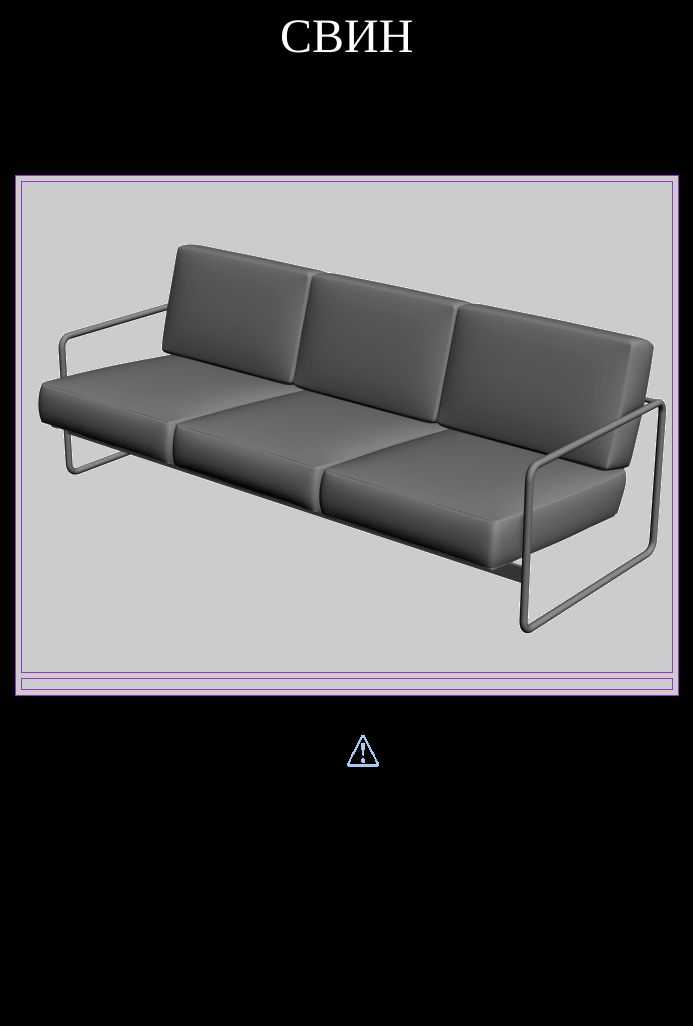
#include <cairo.h>
#include <math.h>
#include <stddef.h>


static void picture(cairo_t *cr, const char *path, double x, double y, double w, double h) {
    cairo_surface_t *image = cairo_image_surface_create_from_png(path);
    cairo_save(cr);
    cairo_set_source_surface(cr, image, x, y);
    cairo_rectangle(cr, x, y, w, h);
    cairo_fill(cr);
    cairo_restore(cr);
    cairo_surface_destroy(image);
}

int main(void) {
    cairo_surface_t *surface = cairo_image_surface_create(CAIRO_FORMAT_RGB24, 693, 1026);
    cairo_t *cr = cairo_create(surface);
    cairo_font_options_t *options = cairo_font_options_create();
    cairo_font_options_set_hint_metrics(options, CAIRO_HINT_METRICS_OFF);
    cairo_font_options_set_hint_style(options, CAIRO_HINT_STYLE_NONE);
    cairo_set_font_options(cr, options);
    cairo_set_miter_limit(cr, 4);
    cairo_set_source_rgb(cr, 0, 0, 0);
    cairo_paint(cr);
    cairo_select_font_face(cr, "Liberation Serif", CAIRO_FONT_SLANT_NORMAL, CAIRO_FONT_WEIGHT_NORMAL);
    cairo_set_font_size(cr, 48);
    cairo_set_source_rgb(cr, 1, 1, 1);
    cairo_move_to(cr, 280, 52);
    cairo_show_text(cr, "СВИН");
    cairo_set_source_rgb(cr, 0.8, 0.8, 0.8);
    cairo_rectangle(cr, 15.5, 175.5, 663, 520);
    cairo_fill_preserve(cr);
    cairo_set_source_rgb(cr, 0.6, 0.2, 0.8);
    cairo_set_line_width(cr, 1);
    cairo_stroke(cr);
    cairo_rectangle(cr, 21.5, 181.5, 651, 491);
    cairo_stroke(cr);
    picture(cr, "img1.png", 38, 244, 629, 390);
    cairo_rectangle(cr, 21.5, 678.5, 651, 11);
    cairo_stroke(cr);
    picture(cr, "img2.png", 347, 735, 32, 32);
    cairo_surface_write_to_png(surface, "page.png");
    cairo_font_options_destroy(options);
    cairo_destroy(cr);
    cairo_surface_destroy(surface);
    return 0;
}
